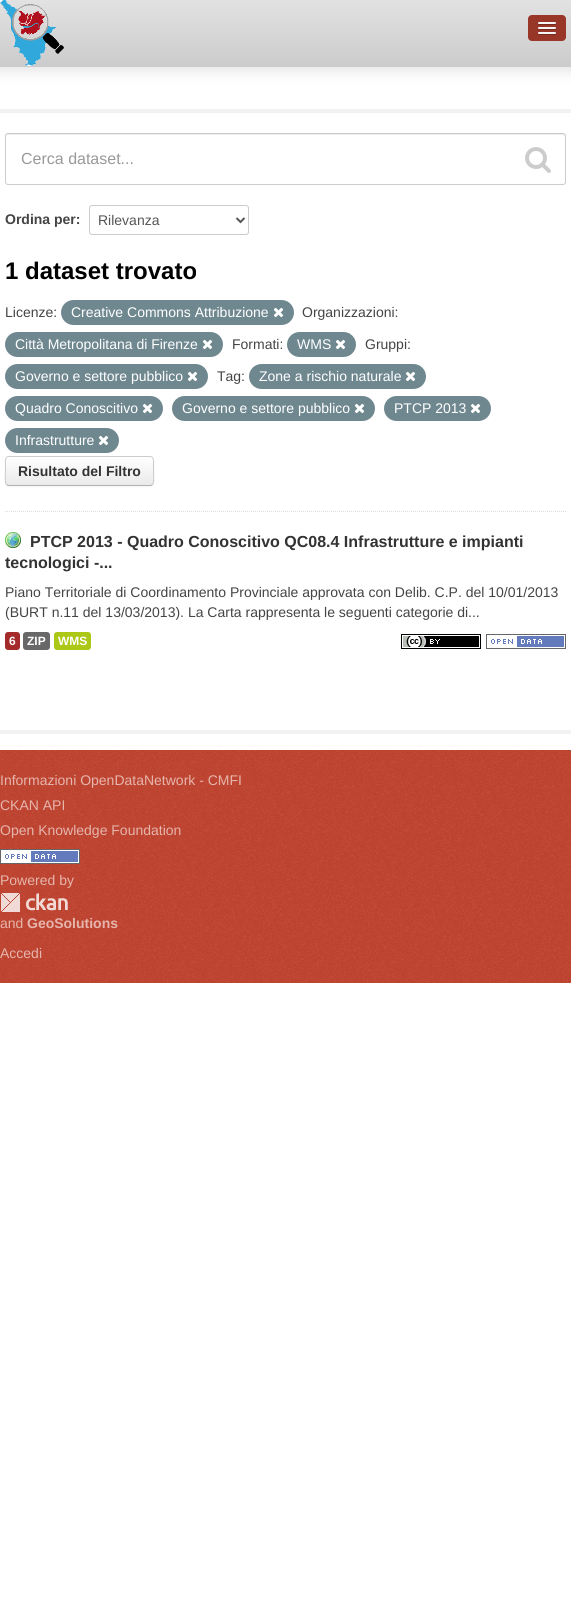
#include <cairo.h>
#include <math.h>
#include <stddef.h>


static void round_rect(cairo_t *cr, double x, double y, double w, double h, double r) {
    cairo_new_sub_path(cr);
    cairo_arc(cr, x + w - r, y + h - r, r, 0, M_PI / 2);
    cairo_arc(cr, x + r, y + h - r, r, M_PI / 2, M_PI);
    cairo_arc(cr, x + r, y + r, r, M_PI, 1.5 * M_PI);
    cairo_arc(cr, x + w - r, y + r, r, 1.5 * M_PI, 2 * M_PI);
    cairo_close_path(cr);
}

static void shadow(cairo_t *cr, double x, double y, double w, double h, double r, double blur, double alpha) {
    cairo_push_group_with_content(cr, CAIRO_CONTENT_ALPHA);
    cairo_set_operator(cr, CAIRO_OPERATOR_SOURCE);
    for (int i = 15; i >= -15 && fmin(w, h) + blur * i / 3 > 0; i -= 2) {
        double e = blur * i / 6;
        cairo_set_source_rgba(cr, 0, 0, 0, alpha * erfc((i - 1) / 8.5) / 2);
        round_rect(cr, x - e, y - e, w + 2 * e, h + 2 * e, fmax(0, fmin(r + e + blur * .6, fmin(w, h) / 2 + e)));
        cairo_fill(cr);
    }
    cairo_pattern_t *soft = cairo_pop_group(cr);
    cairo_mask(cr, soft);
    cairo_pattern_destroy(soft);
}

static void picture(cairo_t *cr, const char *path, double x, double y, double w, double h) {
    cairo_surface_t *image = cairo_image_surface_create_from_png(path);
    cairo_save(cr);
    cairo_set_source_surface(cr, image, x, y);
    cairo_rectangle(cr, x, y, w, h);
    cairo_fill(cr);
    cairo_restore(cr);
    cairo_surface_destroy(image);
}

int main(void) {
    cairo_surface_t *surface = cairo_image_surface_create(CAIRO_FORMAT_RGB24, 571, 1600);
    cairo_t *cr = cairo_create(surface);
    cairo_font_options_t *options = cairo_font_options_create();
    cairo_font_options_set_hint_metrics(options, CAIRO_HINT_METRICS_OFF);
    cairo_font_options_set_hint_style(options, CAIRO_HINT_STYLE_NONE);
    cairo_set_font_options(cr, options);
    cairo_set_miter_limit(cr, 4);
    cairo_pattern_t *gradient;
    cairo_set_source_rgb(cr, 1, 1, 1);
    cairo_paint(cr);
    cairo_set_source_rgb(cr, 0.867, 0.867, 0.867);
    shadow(cr, -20, 2, 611, 67, 0, 7.5, 1);
    gradient = cairo_pattern_create_linear(286, 0, 286, 66);
    cairo_pattern_add_color_stop_rgba(gradient, 0, 0.886, 0.886, 0.886, 1);
    cairo_pattern_add_color_stop_rgba(gradient, 1, 0.8, 0.8, 0.8, 1);
    cairo_set_source(cr, gradient);
    cairo_pattern_destroy(gradient);
    cairo_rectangle(cr, 0, 0, 571, 66);
    cairo_fill(cr);
    cairo_set_source_rgb(cr, 0.8, 0.8, 0.8);
    cairo_rectangle(cr, 0, 66, 571, 1);
    cairo_fill(cr);
    picture(cr, "img1.png", 0, 0, 64, 66);
    cairo_set_source_rgb(cr, 0.596, 0.212, 0.153);
    round_rect(cr, 528, 15, 38, 26, 4);
    cairo_fill(cr);
    cairo_set_source_rgb(cr, 0.447, 0.161, 0.114);
    cairo_new_path(cr);
    cairo_move_to(cr, 538, 23.5);
    cairo_curve_to(cr, 537, 25.5, 541.5, 25, 541.5, 25);
    cairo_line_to(cr, 552.5, 25);
    cairo_curve_to(cr, 552.5, 25, 557, 25.5, 556, 23.5);
    cairo_curve_to(cr, 555, 24.5, 548.5, 24, 547, 24);
    cairo_curve_to(cr, 545.5, 24, 539, 24.5, 538, 23.5);
    cairo_close_path(cr);
    cairo_fill(cr);
    cairo_set_source_rgb(cr, 0.961, 0.961, 0.961);
    round_rect(cr, 538, 22, 18, 2, 1);
    cairo_fill(cr);
    cairo_set_source_rgb(cr, 0.447, 0.161, 0.114);
    cairo_new_path(cr);
    cairo_move_to(cr, 538, 28.5);
    cairo_curve_to(cr, 537, 30.5, 541.5, 30, 541.5, 30);
    cairo_line_to(cr, 552.5, 30);
    cairo_curve_to(cr, 552.5, 30, 557, 30.5, 556, 28.5);
    cairo_curve_to(cr, 555, 29.5, 548.5, 29, 547, 29);
    cairo_curve_to(cr, 545.5, 29, 539, 29.5, 538, 28.5);
    cairo_close_path(cr);
    cairo_fill(cr);
    cairo_set_source_rgb(cr, 0.961, 0.961, 0.961);
    round_rect(cr, 538, 27, 18, 2, 1);
    cairo_fill(cr);
    cairo_set_source_rgb(cr, 0.447, 0.161, 0.114);
    cairo_new_path(cr);
    cairo_move_to(cr, 538, 33.5);
    cairo_curve_to(cr, 537, 35.5, 541.5, 35, 541.5, 35);
    cairo_line_to(cr, 552.5, 35);
    cairo_curve_to(cr, 552.5, 35, 557, 35.5, 556, 33.5);
    cairo_curve_to(cr, 555, 34.5, 548.5, 34, 547, 34);
    cairo_curve_to(cr, 545.5, 34, 539, 34.5, 538, 33.5);
    cairo_close_path(cr);
    cairo_fill(cr);
    cairo_set_source_rgb(cr, 0.961, 0.961, 0.961);
    round_rect(cr, 538, 32, 18, 2, 1);
    cairo_fill(cr);
    cairo_rectangle(cr, -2, 111, 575, 621);
    cairo_set_source_rgb(cr, 0.949, 0.949, 0.949);
    cairo_set_line_width(cr, 4);
    cairo_stroke(cr);
    cairo_new_path(cr);
    cairo_move_to(cr, 5, 511.5);
    cairo_line_to(cr, 566, 511.5);
    cairo_set_source_rgb(cr, 0.867, 0.867, 0.867);
    cairo_set_line_width(cr, 1);
    cairo_set_dash(cr, (double[]){1, 1}, 2, 0);
    cairo_stroke(cr);
    cairo_set_source_rgb(cr, 0.925, 0.925, 0.925);
    cairo_new_path(cr);
    cairo_move_to(cr, 8, 135);
    cairo_line_to(cr, 563, 135);
    cairo_curve_to(cr, 564, 135, 565, 136, 565, 137);
    cairo_curve_to(cr, 565, 136, 565, 134, 563, 134);
    cairo_line_to(cr, 8, 134);
    cairo_line_to(cr, 6, 135);
    cairo_line_to(cr, 6, 137);
    cairo_curve_to(cr, 6, 136, 7, 135, 8, 135);
    cairo_close_path(cr);
    cairo_fill(cr);
    round_rect(cr, 5.5, 133.5, 560, 51, 2.5);
    cairo_set_source_rgb(cr, 0.8, 0.8, 0.8);
    cairo_set_dash(cr, NULL, 0, 0);
    cairo_stroke(cr);
    cairo_select_font_face(cr, "Liberation Sans", CAIRO_FONT_SLANT_NORMAL, CAIRO_FONT_WEIGHT_NORMAL);
    cairo_set_font_size(cr, 16);
    cairo_set_source_rgb(cr, 0.6, 0.6, 0.6);
    cairo_move_to(cr, 21, 164);
    cairo_show_text(cr, "Cerca dataset...");
    picture(cr, "img2.png", 525, 147, 26, 26);
    cairo_select_font_face(cr, "Liberation Sans", CAIRO_FONT_SLANT_NORMAL, CAIRO_FONT_WEIGHT_BOLD);
    cairo_set_font_size(cr, 14);
    cairo_set_source_rgb(cr, 0.267, 0.267, 0.267);
    cairo_move_to(cr, 5, 224);
    cairo_show_text(cr, "Ordina per:");
    round_rect(cr, 89.5, 205.5, 159, 29, 2.5);
    cairo_set_source_rgb(cr, 0.8, 0.8, 0.8);
    cairo_stroke(cr);
    cairo_new_path(cr);
    cairo_move_to(cr, 236.5, 218);
    cairo_line_to(cr, 240.5, 222);
    cairo_line_to(cr, 244.5, 218);
    cairo_set_source_rgb(cr, 0.333, 0.333, 0.333);
    cairo_set_line_width(cr, 2);
    cairo_stroke(cr);
    cairo_select_font_face(cr, "Liberation Sans", CAIRO_FONT_SLANT_NORMAL, CAIRO_FONT_WEIGHT_NORMAL);
    cairo_move_to(cr, 98, 225);
    cairo_show_text(cr, "Rilevanza");
    cairo_select_font_face(cr, "Liberation Sans", CAIRO_FONT_SLANT_NORMAL, CAIRO_FONT_WEIGHT_BOLD);
    cairo_set_font_size(cr, 24);
    cairo_set_source_rgb(cr, 0, 0, 0);
    cairo_move_to(cr, 5, 279);
    cairo_show_text(cr, "1 dataset trovato");
    cairo_select_font_face(cr, "Liberation Sans", CAIRO_FONT_SLANT_NORMAL, CAIRO_FONT_WEIGHT_NORMAL);
    cairo_set_font_size(cr, 14);
    cairo_set_source_rgb(cr, 0.267, 0.267, 0.267);
    cairo_move_to(cr, 5, 317);
    cairo_show_text(cr, "Licenze:");
    cairo_set_source_rgb(cr, 0.435, 0.533, 0.565);
    round_rect(cr, 61, 300, 233, 25, 12.5);
    cairo_fill(cr);
    cairo_set_source_rgb(cr, 1, 1, 1);
    cairo_move_to(cr, 71, 317);
    cairo_show_text(cr, "Creative Commons Attribuzione");
    picture(cr, "img3.png", 273, 307, 11, 11);
    cairo_set_source_rgb(cr, 0.267, 0.267, 0.267);
    cairo_move_to(cr, 302, 317);
    cairo_show_text(cr, "Organizzazioni:");
    cairo_set_source_rgb(cr, 0.435, 0.533, 0.565);
    round_rect(cr, 5, 332, 218, 25, 12.5);
    cairo_fill(cr);
    cairo_set_source_rgb(cr, 1, 1, 1);
    cairo_move_to(cr, 15, 349);
    cairo_show_text(cr, "Città Metropolitana di Firenze");
    picture(cr, "img3.png", 202, 339, 11, 11);
    cairo_set_source_rgb(cr, 0.267, 0.267, 0.267);
    cairo_move_to(cr, 232, 349);
    cairo_show_text(cr, "Formati:");
    cairo_set_source_rgb(cr, 0.435, 0.533, 0.565);
    round_rect(cr, 287, 332, 69, 25, 12.5);
    cairo_fill(cr);
    cairo_set_source_rgb(cr, 1, 1, 1);
    cairo_move_to(cr, 297, 349);
    cairo_show_text(cr, "WMS");
    picture(cr, "img3.png", 335, 339, 11, 11);
    cairo_set_source_rgb(cr, 0.267, 0.267, 0.267);
    cairo_move_to(cr, 365, 349);
    cairo_show_text(cr, "Gruppi:");
    cairo_set_source_rgb(cr, 0.435, 0.533, 0.565);
    round_rect(cr, 5, 364, 203, 25, 12.5);
    cairo_fill(cr);
    cairo_set_source_rgb(cr, 1, 1, 1);
    cairo_move_to(cr, 15, 381);
    cairo_show_text(cr, "Governo e settore pubblico");
    picture(cr, "img3.png", 187, 371, 11, 11);
    cairo_set_source_rgb(cr, 0.267, 0.267, 0.267);
    cairo_move_to(cr, 217, 381);
    cairo_show_text(cr, "Tag:");
    cairo_set_source_rgb(cr, 0.435, 0.533, 0.565);
    round_rect(cr, 249, 364, 177, 25, 12.5);
    cairo_fill(cr);
    cairo_set_source_rgb(cr, 1, 1, 1);
    cairo_move_to(cr, 259, 381);
    cairo_show_text(cr, "Zone a rischio naturale");
    picture(cr, "img3.png", 405, 371, 11, 11);
    cairo_set_source_rgb(cr, 0.435, 0.533, 0.565);
    round_rect(cr, 5, 396, 158, 25, 12.5);
    cairo_fill(cr);
    cairo_set_source_rgb(cr, 1, 1, 1);
    cairo_move_to(cr, 15, 413);
    cairo_show_text(cr, "Quadro Conoscitivo");
    picture(cr, "img3.png", 142, 403, 11, 11);
    cairo_set_source_rgb(cr, 0.435, 0.533, 0.565);
    round_rect(cr, 172, 396, 203, 25, 12.5);
    cairo_fill(cr);
    cairo_set_source_rgb(cr, 1, 1, 1);
    cairo_move_to(cr, 182, 413);
    cairo_show_text(cr, "Governo e settore pubblico");
    picture(cr, "img3.png", 354, 403, 11, 11);
    cairo_set_source_rgb(cr, 0.435, 0.533, 0.565);
    round_rect(cr, 384, 396, 107, 25, 12.5);
    cairo_fill(cr);
    cairo_set_source_rgb(cr, 1, 1, 1);
    cairo_move_to(cr, 394, 413);
    cairo_show_text(cr, "PTCP 2013");
    picture(cr, "img3.png", 470, 403, 11, 11);
    cairo_set_source_rgb(cr, 0.435, 0.533, 0.565);
    round_rect(cr, 5, 428, 114, 25, 12.5);
    cairo_fill(cr);
    cairo_set_source_rgb(cr, 1, 1, 1);
    cairo_move_to(cr, 15, 445);
    cairo_show_text(cr, "Infrastrutture");
    picture(cr, "img3.png", 98, 435, 11, 11);
    cairo_set_source_rgb(cr, 0, 0, 0);
    shadow(cr, 5, 457, 149, 30, 4, 1, 0.05);
    cairo_save(cr);
    round_rect(cr, 5, 456, 149, 30, 4);
    cairo_clip(cr);
    gradient = cairo_pattern_create_linear(80, 457, 80, 485);
    cairo_pattern_add_color_stop_rgba(gradient, 0, 1, 1, 1, 1);
    cairo_pattern_add_color_stop_rgba(gradient, 1, 0.918, 0.918, 0.918, 1);
    cairo_set_source(cr, gradient);
    cairo_pattern_destroy(gradient);
    cairo_rectangle(cr, 5, 457, 149, 28);
    cairo_fill(cr);
    cairo_restore(cr);
    cairo_new_path(cr);
    cairo_move_to(cr, 152.5, 484.5);
    cairo_curve_to(cr, 152, 485, 151, 485.5, 150, 485.5);
    cairo_line_to(cr, 9, 485.5);
    cairo_curve_to(cr, 8, 485.5, 7, 485, 6.5, 484.5);
    cairo_set_source_rgb(cr, 0.702, 0.702, 0.702);
    cairo_set_line_width(cr, 1);
    cairo_stroke(cr);
    cairo_new_path(cr);
    cairo_move_to(cr, 6.5, 484.5);
    cairo_curve_to(cr, 4.5, 482.5, 5.5, 474, 5.5, 471);
    cairo_line_to(cr, 5.5, 463.5);
    cairo_curve_to(cr, 5.5, 461, 5, 456.5, 9, 456.5);
    cairo_line_to(cr, 150, 456.5);
    cairo_curve_to(cr, 154, 456.5, 153.5, 461, 153.5, 463.5);
    cairo_line_to(cr, 153.5, 471);
    cairo_curve_to(cr, 153.5, 474, 154.5, 482.5, 152.5, 484.5);
    cairo_set_source_rgb(cr, 0.8, 0.8, 0.8);
    cairo_stroke(cr);
    cairo_select_font_face(cr, "Liberation Sans", CAIRO_FONT_SLANT_NORMAL, CAIRO_FONT_WEIGHT_BOLD);
    cairo_set_source_rgb(cr, 0.2, 0.2, 0.2);
    cairo_move_to(cr, 18, 476);
    cairo_show_text(cr, "Risultato del Filtro");
    picture(cr, "img4.png", 5, 532, 16, 16);
    cairo_set_font_size(cr, 16);
    cairo_move_to(cr, 30, 547);
    cairo_show_text(cr, "PTCP 2013 - Quadro Conoscitivo QC08.4 Infrastrutture e impianti");
    cairo_move_to(cr, 5, 568);
    cairo_show_text(cr, "tecnologici -...");
    cairo_select_font_face(cr, "Liberation Sans", CAIRO_FONT_SLANT_NORMAL, CAIRO_FONT_WEIGHT_NORMAL);
    cairo_set_font_size(cr, 14);
    cairo_set_source_rgb(cr, 0.267, 0.267, 0.267);
    cairo_move_to(cr, 5, 597);
    cairo_show_text(cr, "Piano Territoriale di Coordinamento Provinciale approvata con Delib. C.P. del 10/01/2013");
    cairo_move_to(cr, 5, 617);
    cairo_show_text(cr, "(BURT n.11 del 13/03/2013). La Carta rappresenta le seguenti categorie di...");
    cairo_set_source_rgb(cr, 0.647, 0.165, 0.165);
    round_rect(cr, 5, 632, 15, 18, 3);
    cairo_fill(cr);
    cairo_select_font_face(cr, "Liberation Sans", CAIRO_FONT_SLANT_NORMAL, CAIRO_FONT_WEIGHT_BOLD);
    cairo_set_font_size(cr, 12);
    cairo_set_source_rgb(cr, 1, 1, 1);
    cairo_move_to(cr, 9, 645);
    cairo_show_text(cr, "6");
    cairo_set_source_rgb(cr, 0.408, 0.408, 0.408);
    round_rect(cr, 23, 632, 27, 18, 3);
    cairo_fill(cr);
    cairo_set_source_rgb(cr, 1, 1, 1);
    cairo_move_to(cr, 27, 645);
    cairo_show_text(cr, "ZIP");
    cairo_set_source_rgb(cr, 0.678, 0.78, 0.09);
    round_rect(cr, 54, 632, 37, 18, 3);
    cairo_fill(cr);
    cairo_set_source_rgb(cr, 1, 1, 1);
    cairo_move_to(cr, 58, 645);
    cairo_show_text(cr, "WMS");
    picture(cr, "img5.png", 401, 634, 80, 15);
    picture(cr, "img6.png", 486, 634, 80, 15);
    cairo_set_source_rgb(cr, 0.757, 0.271, 0.192);
    cairo_rectangle(cr, 0, 750, 571, 233);
    cairo_fill(cr);
    picture(cr, "img7.png", 0, 750, 571, 233);
    cairo_select_font_face(cr, "Liberation Sans", CAIRO_FONT_SLANT_NORMAL, CAIRO_FONT_WEIGHT_NORMAL);
    cairo_set_font_size(cr, 14);
    cairo_set_source_rgb(cr, 0.902, 0.71, 0.678);
    cairo_move_to(cr, 0, 785);
    cairo_show_text(cr, "Informazioni OpenDataNetwork - CMFI");
    cairo_move_to(cr, 0, 810);
    cairo_show_text(cr, "CKAN API");
    cairo_move_to(cr, 0, 835);
    cairo_show_text(cr, "Open Knowledge Foundation");
    picture(cr, "img6.png", 0, 849, 80, 15);
    cairo_move_to(cr, 0, 885);
    cairo_show_text(cr, "Powered by");
    picture(cr, "img8.png", 1, 893, 67, 19);
    cairo_move_to(cr, 0, 928);
    cairo_show_text(cr, "and");
    cairo_select_font_face(cr, "Liberation Sans", CAIRO_FONT_SLANT_NORMAL, CAIRO_FONT_WEIGHT_BOLD);
    cairo_move_to(cr, 27, 928);
    cairo_show_text(cr, "GeoSolutions");
    cairo_select_font_face(cr, "Liberation Sans", CAIRO_FONT_SLANT_NORMAL, CAIRO_FONT_WEIGHT_NORMAL);
    cairo_move_to(cr, 0, 958);
    cairo_show_text(cr, "Accedi");
    cairo_surface_write_to_png(surface, "page.png");
    cairo_font_options_destroy(options);
    cairo_destroy(cr);
    cairo_surface_destroy(surface);
    return 0;
}
